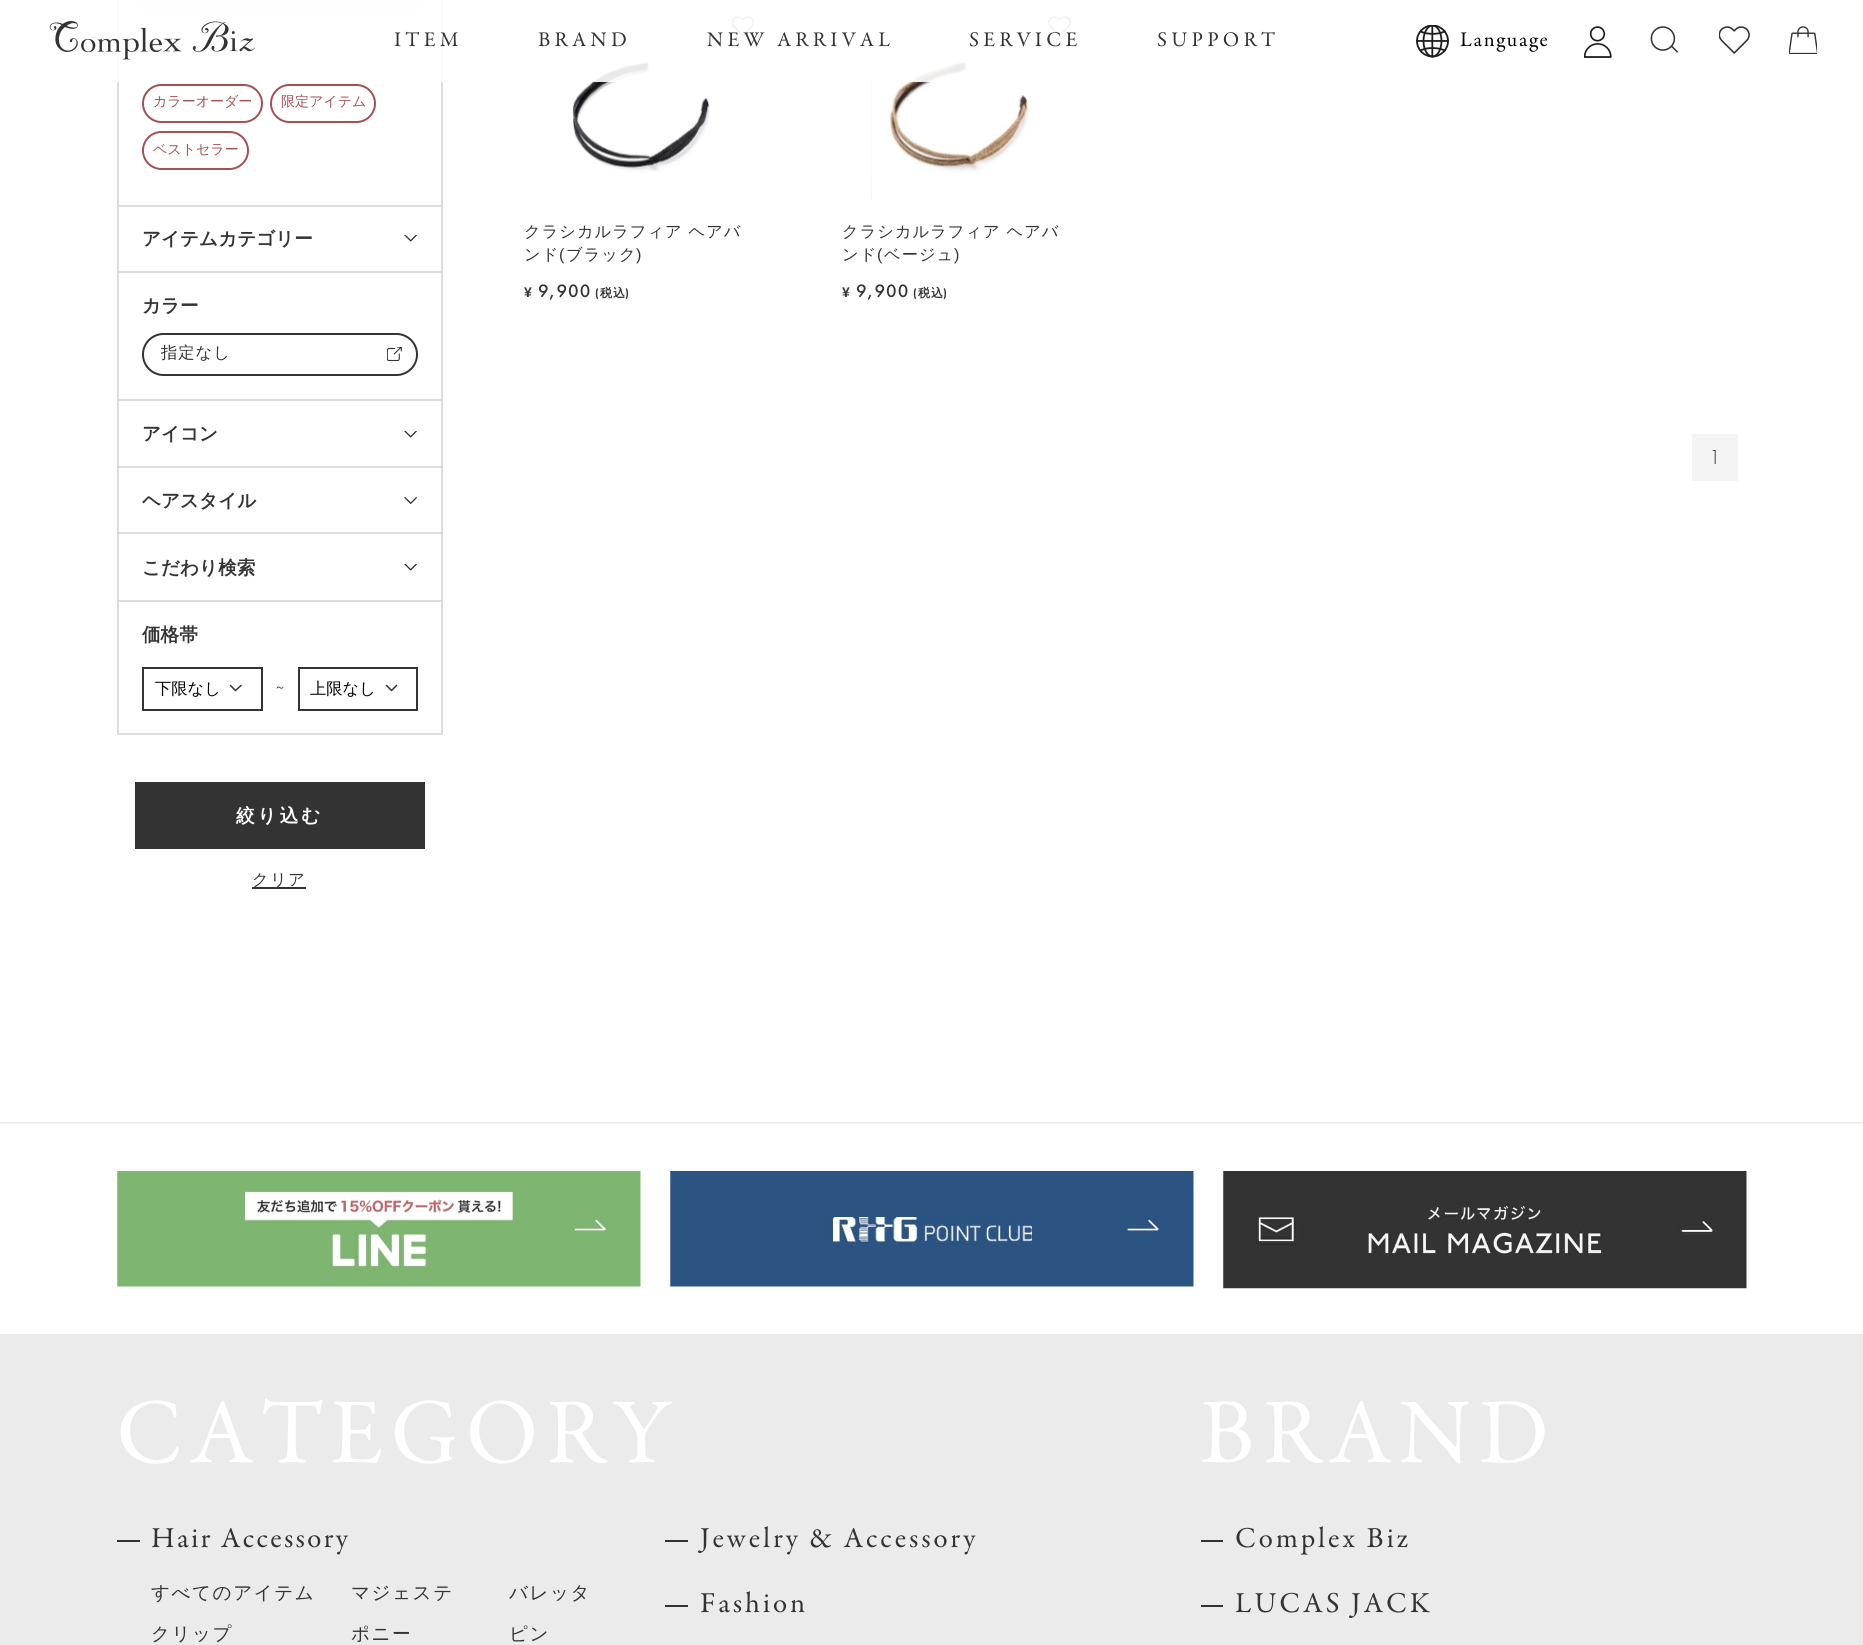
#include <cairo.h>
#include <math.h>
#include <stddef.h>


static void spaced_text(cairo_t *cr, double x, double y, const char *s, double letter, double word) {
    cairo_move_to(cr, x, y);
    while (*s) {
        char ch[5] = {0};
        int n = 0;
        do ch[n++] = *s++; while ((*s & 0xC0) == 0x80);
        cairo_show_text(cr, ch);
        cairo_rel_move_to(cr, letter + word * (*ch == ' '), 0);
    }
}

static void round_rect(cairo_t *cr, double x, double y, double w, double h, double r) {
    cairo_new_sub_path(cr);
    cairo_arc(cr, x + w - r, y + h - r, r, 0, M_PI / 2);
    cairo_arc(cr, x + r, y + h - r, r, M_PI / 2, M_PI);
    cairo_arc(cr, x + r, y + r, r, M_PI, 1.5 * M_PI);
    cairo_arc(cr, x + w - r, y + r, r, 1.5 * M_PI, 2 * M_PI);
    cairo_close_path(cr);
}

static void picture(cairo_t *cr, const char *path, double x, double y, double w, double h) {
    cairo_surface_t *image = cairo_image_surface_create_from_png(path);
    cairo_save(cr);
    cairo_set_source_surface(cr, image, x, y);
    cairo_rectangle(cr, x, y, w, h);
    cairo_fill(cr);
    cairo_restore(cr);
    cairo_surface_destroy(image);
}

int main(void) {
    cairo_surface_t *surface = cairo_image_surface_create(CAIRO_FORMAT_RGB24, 1863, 1645);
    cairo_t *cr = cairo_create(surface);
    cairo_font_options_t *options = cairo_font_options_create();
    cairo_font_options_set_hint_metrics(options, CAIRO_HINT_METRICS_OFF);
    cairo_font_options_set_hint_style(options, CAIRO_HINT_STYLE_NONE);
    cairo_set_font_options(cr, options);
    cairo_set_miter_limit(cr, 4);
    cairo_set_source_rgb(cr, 1, 1, 1);
    cairo_paint(cr);
    cairo_rectangle(cr, 118, -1, 324, 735);
    cairo_set_source_rgb(cr, 0.867, 0.867, 0.867);
    cairo_stroke(cr);
    cairo_set_source_rgb(cr, 0.969, 0.969, 0.969);
    cairo_rectangle(cr, 142, 0, 276, 12);
    cairo_fill(cr);
    picture(cr, "img10.png", 732, 16, 22, 19);
    picture(cr, "img11.png", 572, 62, 138, 110);
    picture(cr, "img12.png", 1048, 16, 23, 19);
    picture(cr, "img13.png", 871, 26, 1, 175);
    picture(cr, "img14.png", 871, 26, 158, 150);
    cairo_set_source_rgba(cr, 1, 1, 1, 0.9);
    cairo_rectangle(cr, 117, 0, 954, 82);
    cairo_fill(cr);
    picture(cr, "img1.png", 49, 21, 206, 39);
    cairo_select_font_face(cr, "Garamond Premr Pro", CAIRO_FONT_SLANT_NORMAL, CAIRO_FONT_WEIGHT_NORMAL);
    cairo_set_font_size(cr, 21);
    cairo_set_source_rgb(cr, 0.2, 0.2, 0.2);
    spaced_text(cr, 394, 46, "ITEM", 4.25, 0);
    spaced_text(cr, 538, 46, "BRAND", 4.25, 0);
    spaced_text(cr, 707, 46, "NEW ARRIVAL", 4.25, 0);
    spaced_text(cr, 969, 46, "SERVICE", 4.25, 0);
    spaced_text(cr, 1157, 46, "SUPPORT", 4.25, 0);
    picture(cr, "img2.png", 1416, 25, 33, 33);
    cairo_set_source_rgb(cr, 0, 0, 0);
    spaced_text(cr, 1460, 46, "Language", 1.75, 0);
    picture(cr, "img3.png", 1584, 26, 28, 32);
    picture(cr, "img4.png", 1650, 26, 28, 27);
    picture(cr, "img5.png", 1719, 26, 31, 28);
    picture(cr, "img6.png", 1789, 26, 28, 28);
    cairo_set_source_rgb(cr, 0.867, 0.867, 0.867);
    cairo_rectangle(cr, 119, 205, 322, 2);
    cairo_fill(cr);
    round_rect(cr, 143, 85, 119, 37, 18.5);
    cairo_set_source_rgb(cr, 0.639, 0.318, 0.333);
    cairo_stroke(cr);
    cairo_select_font_face(cr, "WenQuanYi Zen Hei Medium", CAIRO_FONT_SLANT_NORMAL, CAIRO_FONT_WEIGHT_NORMAL);
    cairo_set_font_size(cr, 14);
    cairo_move_to(cr, 153, 106);
    cairo_show_text(cr, "カラーオーダー");
    round_rect(cr, 271, 85, 104, 37, 18.5);
    cairo_stroke(cr);
    cairo_move_to(cr, 281, 106);
    cairo_show_text(cr, "限定アイテム");
    round_rect(cr, 143, 132, 105, 37, 18.5);
    cairo_stroke(cr);
    cairo_move_to(cr, 153, 154);
    cairo_show_text(cr, "ベストセラー");
    cairo_set_source_rgb(cr, 0.867, 0.867, 0.867);
    cairo_rectangle(cr, 119, 271, 322, 2);
    cairo_fill(cr);
    cairo_select_font_face(cr, "WenQuanYi Zen Hei", CAIRO_FONT_SLANT_NORMAL, CAIRO_FONT_WEIGHT_BOLD);
    cairo_set_font_size(cr, 18.6);
    cairo_set_source_rgb(cr, 0.2, 0.2, 0.2);
    cairo_move_to(cr, 142, 245);
    cairo_show_text(cr, "アイテムカテゴリー");
    picture(cr, "img7.png", 404, 235, 13, 7);
    cairo_set_source_rgb(cr, 0.867, 0.867, 0.867);
    cairo_rectangle(cr, 119, 399, 322, 2);
    cairo_fill(cr);
    cairo_set_source_rgb(cr, 0.2, 0.2, 0.2);
    cairo_move_to(cr, 142, 312);
    cairo_show_text(cr, "カラー");
    round_rect(cr, 143, 334, 274, 41, 20.5);
    cairo_stroke(cr);
    cairo_select_font_face(cr, "WenQuanYi Zen Hei Medium", CAIRO_FONT_SLANT_NORMAL, CAIRO_FONT_WEIGHT_NORMAL);
    cairo_set_font_size(cr, 16.25);
    spaced_text(cr, 161, 358, "指定なし", 1, 0);
    picture(cr, "img8.png", 387, 347, 15, 14);
    cairo_set_source_rgb(cr, 0.867, 0.867, 0.867);
    cairo_rectangle(cr, 119, 466, 322, 2);
    cairo_fill(cr);
    cairo_select_font_face(cr, "WenQuanYi Zen Hei", CAIRO_FONT_SLANT_NORMAL, CAIRO_FONT_WEIGHT_BOLD);
    cairo_set_font_size(cr, 18.6);
    cairo_set_source_rgb(cr, 0.2, 0.2, 0.2);
    cairo_move_to(cr, 142, 440);
    cairo_show_text(cr, "アイコン");
    picture(cr, "img7.png", 404, 431, 13, 7);
    cairo_set_source_rgb(cr, 0.867, 0.867, 0.867);
    cairo_rectangle(cr, 119, 532, 322, 2);
    cairo_fill(cr);
    cairo_set_source_rgb(cr, 0.2, 0.2, 0.2);
    cairo_move_to(cr, 142, 507);
    cairo_show_text(cr, "ヘアスタイル");
    picture(cr, "img9.png", 404, 497, 13, 7);
    cairo_set_source_rgb(cr, 0.867, 0.867, 0.867);
    cairo_rectangle(cr, 119, 600, 322, 2);
    cairo_fill(cr);
    cairo_set_source_rgb(cr, 0.2, 0.2, 0.2);
    cairo_move_to(cr, 142, 574);
    cairo_show_text(cr, "こだわり検索");
    picture(cr, "img7.png", 404, 564, 13, 7);
    cairo_move_to(cr, 142, 641);
    cairo_show_text(cr, "価格帯");
    cairo_new_path(cr);
    cairo_move_to(cr, 241, 685.5);
    cairo_line_to(cr, 235.5, 690.5);
    cairo_line_to(cr, 230.5, 685.5);
    cairo_set_line_width(cr, 1.5);
    cairo_set_line_cap(cr, CAIRO_LINE_CAP_ROUND);
    cairo_set_line_join(cr, CAIRO_LINE_JOIN_ROUND);
    cairo_stroke(cr);
    cairo_rectangle(cr, 143, 668, 119, 42);
    cairo_set_line_width(cr, 2);
    cairo_set_line_cap(cr, CAIRO_LINE_CAP_BUTT);
    cairo_set_line_join(cr, CAIRO_LINE_JOIN_MITER);
    cairo_stroke(cr);
    cairo_select_font_face(cr, "WenQuanYi Zen Hei Medium", CAIRO_FONT_SLANT_NORMAL, CAIRO_FONT_WEIGHT_NORMAL);
    cairo_set_font_size(cr, 16.25);
    cairo_set_source_rgb(cr, 0, 0, 0);
    cairo_move_to(cr, 155, 694);
    cairo_show_text(cr, "下限なし");
    cairo_set_font_size(cr, 12);
    cairo_set_source_rgb(cr, 0.2, 0.2, 0.2);
    cairo_move_to(cr, 274, 691);
    cairo_show_text(cr, "～");
    cairo_new_path(cr);
    cairo_move_to(cr, 396.5, 685.5);
    cairo_line_to(cr, 391.5, 690.5);
    cairo_line_to(cr, 386.5, 685.5);
    cairo_set_line_width(cr, 1.5);
    cairo_set_line_cap(cr, CAIRO_LINE_CAP_ROUND);
    cairo_set_line_join(cr, CAIRO_LINE_JOIN_ROUND);
    cairo_stroke(cr);
    cairo_rectangle(cr, 299, 668, 118, 42);
    cairo_set_line_width(cr, 2);
    cairo_set_line_cap(cr, CAIRO_LINE_CAP_BUTT);
    cairo_set_line_join(cr, CAIRO_LINE_JOIN_MITER);
    cairo_stroke(cr);
    cairo_set_font_size(cr, 16.25);
    cairo_set_source_rgb(cr, 0, 0, 0);
    cairo_move_to(cr, 310, 694);
    cairo_show_text(cr, "上限なし");
    cairo_set_source_rgb(cr, 0.2, 0.2, 0.2);
    cairo_rectangle(cr, 135, 782, 290, 67);
    cairo_fill(cr);
    cairo_select_font_face(cr, "WenQuanYi Zen Hei", CAIRO_FONT_SLANT_NORMAL, CAIRO_FONT_WEIGHT_BOLD);
    cairo_set_font_size(cr, 18.6);
    cairo_set_source_rgb(cr, 1, 1, 1);
    spaced_text(cr, 236, 822, "絞り込む", 3, 0);
    cairo_set_source_rgb(cr, 0.2, 0.2, 0.2);
    cairo_rectangle(cr, 252, 887, 54, 2);
    cairo_fill(cr);
    cairo_select_font_face(cr, "WenQuanYi Zen Hei Medium", CAIRO_FONT_SLANT_NORMAL, CAIRO_FONT_WEIGHT_NORMAL);
    cairo_set_font_size(cr, 16.25);
    spaced_text(cr, 252, 885, "クリア", 1.5, 0);
    spaced_text(cr, 524, 237, "クラシカルラフィア ヘアバ", 1, 0);
    spaced_text(cr, 524, 260, "ンド", 1, 0);
    cairo_select_font_face(cr, "Liberation Sans", CAIRO_FONT_SLANT_NORMAL, CAIRO_FONT_WEIGHT_NORMAL);
    spaced_text(cr, 559, 260, "(", 1, 0);
    cairo_select_font_face(cr, "WenQuanYi Zen Hei Medium", CAIRO_FONT_SLANT_NORMAL, CAIRO_FONT_WEIGHT_NORMAL);
    spaced_text(cr, 566, 260, "ブラック", 1, 0);
    cairo_select_font_face(cr, "Liberation Sans", CAIRO_FONT_SLANT_NORMAL, CAIRO_FONT_WEIGHT_NORMAL);
    spaced_text(cr, 636, 260, ")", 1, 0);
    cairo_select_font_face(cr, "Liberation Sans", CAIRO_FONT_SLANT_NORMAL, CAIRO_FONT_WEIGHT_BOLD);
    cairo_set_font_size(cr, 14);
    spaced_text(cr, 524, 297, "¥", 1, 0);
    cairo_select_font_face(cr, "Futura PT Medium", CAIRO_FONT_SLANT_NORMAL, CAIRO_FONT_WEIGHT_NORMAL);
    cairo_set_font_size(cr, 18.6);
    spaced_text(cr, 538, 297, "9,900", 1, 0);
    cairo_select_font_face(cr, "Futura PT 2 Medium", CAIRO_FONT_SLANT_NORMAL, CAIRO_FONT_WEIGHT_NORMAL);
    cairo_set_font_size(cr, 12);
    spaced_text(cr, 595, 297, "(", 1, 0);
    cairo_select_font_face(cr, "WenQuanYi Zen Hei", CAIRO_FONT_SLANT_NORMAL, CAIRO_FONT_WEIGHT_BOLD);
    spaced_text(cr, 600, 297, "税込", 1, 0);
    cairo_select_font_face(cr, "Futura PT 2 Medium", CAIRO_FONT_SLANT_NORMAL, CAIRO_FONT_WEIGHT_NORMAL);
    spaced_text(cr, 625, 297, ")", 1, 0);
    cairo_select_font_face(cr, "WenQuanYi Zen Hei Medium", CAIRO_FONT_SLANT_NORMAL, CAIRO_FONT_WEIGHT_NORMAL);
    cairo_set_font_size(cr, 16.25);
    spaced_text(cr, 842, 237, "クラシカルラフィア ヘアバ", 1, 0);
    spaced_text(cr, 842, 260, "ンド", 1, 0);
    cairo_select_font_face(cr, "Liberation Sans", CAIRO_FONT_SLANT_NORMAL, CAIRO_FONT_WEIGHT_NORMAL);
    spaced_text(cr, 877, 260, "(", 1, 0);
    cairo_select_font_face(cr, "WenQuanYi Zen Hei Medium", CAIRO_FONT_SLANT_NORMAL, CAIRO_FONT_WEIGHT_NORMAL);
    spaced_text(cr, 884, 260, "ベージュ", 1, 0);
    cairo_select_font_face(cr, "Liberation Sans", CAIRO_FONT_SLANT_NORMAL, CAIRO_FONT_WEIGHT_NORMAL);
    spaced_text(cr, 954, 260, ")", 1, 0);
    cairo_select_font_face(cr, "Liberation Sans", CAIRO_FONT_SLANT_NORMAL, CAIRO_FONT_WEIGHT_BOLD);
    cairo_set_font_size(cr, 14);
    spaced_text(cr, 842, 297, "¥", 1, 0);
    cairo_select_font_face(cr, "Futura PT Medium", CAIRO_FONT_SLANT_NORMAL, CAIRO_FONT_WEIGHT_NORMAL);
    cairo_set_font_size(cr, 18.6);
    spaced_text(cr, 856, 297, "9,900", 1, 0);
    cairo_select_font_face(cr, "Futura PT 2 Medium", CAIRO_FONT_SLANT_NORMAL, CAIRO_FONT_WEIGHT_NORMAL);
    cairo_set_font_size(cr, 12);
    spaced_text(cr, 913, 297, "(", 1, 0);
    cairo_select_font_face(cr, "WenQuanYi Zen Hei", CAIRO_FONT_SLANT_NORMAL, CAIRO_FONT_WEIGHT_BOLD);
    spaced_text(cr, 918, 297, "税込", 1, 0);
    cairo_select_font_face(cr, "Futura PT 2 Medium", CAIRO_FONT_SLANT_NORMAL, CAIRO_FONT_WEIGHT_NORMAL);
    spaced_text(cr, 943, 297, ")", 1, 0);
    cairo_set_source_rgb(cr, 0.957, 0.957, 0.957);
    cairo_rectangle(cr, 1692, 434, 46, 47);
    cairo_fill(cr);
    cairo_select_font_face(cr, "Futura PT Light", CAIRO_FONT_SLANT_NORMAL, CAIRO_FONT_WEIGHT_NORMAL);
    cairo_set_font_size(cr, 21);
    cairo_set_source_rgb(cr, 0.2, 0.2, 0.2);
    cairo_move_to(cr, 1709, 464);
    cairo_show_text(cr, "1");
    cairo_set_source_rgb(cr, 0.937, 0.937, 0.937);
    cairo_rectangle(cr, 0, 1122, 1863, 2);
    cairo_fill(cr);
    picture(cr, "img15.png", 117, 1171, 524, 116);
    picture(cr, "img16.png", 670, 1171, 524, 116);
    picture(cr, "img17.png", 1223, 1171, 524, 118);
    cairo_set_source_rgb(cr, 0.918, 0.918, 0.918);
    cairo_rectangle(cr, 0, 1334, 1863, 311);
    cairo_fill(cr);
    cairo_select_font_face(cr, "Garamond Premr Pro", CAIRO_FONT_SLANT_NORMAL, CAIRO_FONT_WEIGHT_NORMAL);
    cairo_set_font_size(cr, 93.25);
    cairo_set_source_rgb(cr, 1, 1, 1);
    spaced_text(cr, 116, 1462, "CATEGORY", 7.5, 0);
    cairo_set_source_rgb(cr, 0.2, 0.2, 0.2);
    cairo_rectangle(cr, 117, 1540, 23, 2);
    cairo_fill(cr);
    cairo_set_font_size(cr, 29.1);
    spaced_text(cr, 151, 1547, "Hair Accessory", 2.3, 0);
    cairo_select_font_face(cr, "WenQuanYi Zen Hei Medium", CAIRO_FONT_SLANT_NORMAL, CAIRO_FONT_WEIGHT_NORMAL);
    cairo_set_font_size(cr, 18.6);
    spaced_text(cr, 151, 1599, "すべてのアイテム", 1.5, 0);
    spaced_text(cr, 351, 1599, "マジェステ", 1.5, 0);
    spaced_text(cr, 509, 1599, "バレッタ", 1.5, 0);
    spaced_text(cr, 151, 1640, "クリップ", 1.5, 0);
    spaced_text(cr, 351, 1640, "ポニー", 1.5, 0);
    spaced_text(cr, 509, 1640, "ピン", 1.5, 0);
    cairo_rectangle(cr, 665, 1540, 23, 2);
    cairo_fill(cr);
    cairo_select_font_face(cr, "Garamond Premr Pro", CAIRO_FONT_SLANT_NORMAL, CAIRO_FONT_WEIGHT_NORMAL);
    cairo_set_font_size(cr, 29.1);
    spaced_text(cr, 700, 1547, "Jewelry & Accessory", 2.9, 0);
    cairo_rectangle(cr, 665, 1605, 23, 2);
    cairo_fill(cr);
    spaced_text(cr, 700, 1612, "Fashion", 2.9, 0);
    cairo_set_font_size(cr, 93.25);
    cairo_set_source_rgb(cr, 1, 1, 1);
    spaced_text(cr, 1200, 1462, "BRAND", 7.5, 0);
    cairo_set_source_rgb(cr, 0.2, 0.2, 0.2);
    cairo_rectangle(cr, 1201, 1540, 22, 2);
    cairo_fill(cr);
    cairo_set_font_size(cr, 29.1);
    spaced_text(cr, 1235, 1547, "Complex Biz", 2.9, 0);
    cairo_rectangle(cr, 1201, 1605, 22, 2);
    cairo_fill(cr);
    spaced_text(cr, 1235, 1612, "LUCAS JACK", 2.9, 0);
    cairo_surface_write_to_png(surface, "page.png");
    cairo_font_options_destroy(options);
    cairo_destroy(cr);
    cairo_surface_destroy(surface);
    return 0;
}
